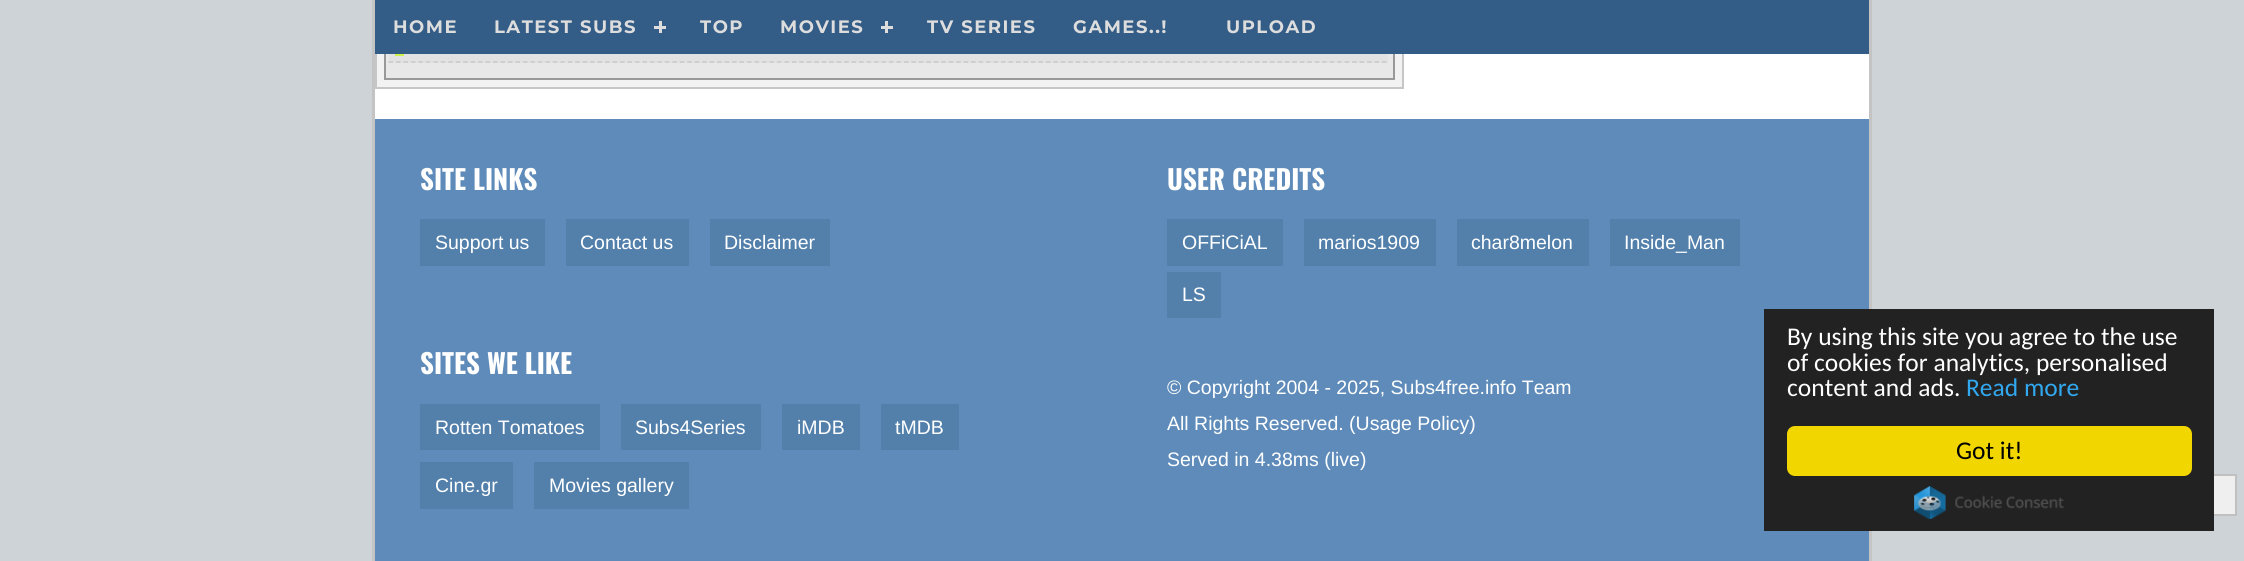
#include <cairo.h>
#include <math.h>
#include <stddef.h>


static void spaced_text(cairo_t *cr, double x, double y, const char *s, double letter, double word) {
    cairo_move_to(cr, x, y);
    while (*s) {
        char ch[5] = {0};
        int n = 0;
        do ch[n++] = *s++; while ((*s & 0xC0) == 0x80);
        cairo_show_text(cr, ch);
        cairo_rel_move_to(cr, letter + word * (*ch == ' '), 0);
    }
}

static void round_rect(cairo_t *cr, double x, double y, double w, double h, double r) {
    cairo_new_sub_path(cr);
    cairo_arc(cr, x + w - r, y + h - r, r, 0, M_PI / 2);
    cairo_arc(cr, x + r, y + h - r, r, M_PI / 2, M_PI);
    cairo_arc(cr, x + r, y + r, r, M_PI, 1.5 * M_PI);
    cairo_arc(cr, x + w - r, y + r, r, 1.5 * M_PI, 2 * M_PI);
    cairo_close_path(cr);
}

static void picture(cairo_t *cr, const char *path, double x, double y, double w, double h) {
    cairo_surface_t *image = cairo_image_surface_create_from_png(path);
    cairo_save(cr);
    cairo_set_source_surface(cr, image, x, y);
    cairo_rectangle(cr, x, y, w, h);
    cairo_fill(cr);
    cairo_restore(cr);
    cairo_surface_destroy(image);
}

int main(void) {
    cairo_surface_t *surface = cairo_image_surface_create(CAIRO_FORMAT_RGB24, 2244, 561);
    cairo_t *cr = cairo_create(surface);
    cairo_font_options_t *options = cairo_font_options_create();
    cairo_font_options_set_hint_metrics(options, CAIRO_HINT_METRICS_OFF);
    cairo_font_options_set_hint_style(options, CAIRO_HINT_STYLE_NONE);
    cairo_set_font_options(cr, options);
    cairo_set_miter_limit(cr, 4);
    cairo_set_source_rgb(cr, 0.808, 0.827, 0.843);
    cairo_paint(cr);
    cairo_set_source_rgb(cr, 1, 1, 1);
    cairo_rectangle(cr, 375, 54, 1494, 65);
    cairo_fill(cr);
    cairo_set_source_rgb(cr, 0.769, 0.769, 0.769);
    cairo_rectangle(cr, 1869, 0, 3, 561);
    cairo_fill(cr);
    cairo_rectangle(cr, 372, 0, 3, 561);
    cairo_fill(cr);
    cairo_set_source_rgb(cr, 0.949, 0.949, 0.949);
    cairo_rectangle(cr, 377, 54, 1025, 33);
    cairo_fill(cr);
    cairo_rectangle(cr, 376, -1, 1027, 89);
    cairo_set_source_rgb(cr, 0.776, 0.776, 0.776);
    cairo_stroke(cr);
    cairo_set_source_rgb(cr, 0.91, 0.91, 0.91);
    cairo_rectangle(cr, 386, 54, 1007, 24);
    cairo_fill(cr);
    cairo_rectangle(cr, 385, -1, 1009, 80);
    cairo_set_source_rgb(cr, 0.6, 0.6, 0.6);
    cairo_stroke(cr);
    cairo_set_source_rgb(cr, 0.886, 0.886, 0.886);
    cairo_rectangle(cr, 389, 54, 999, 9);
    cairo_fill(cr);
    cairo_new_path(cr);
    cairo_move_to(cr, 388.5, 62);
    cairo_line_to(cr, 1387.5, 62);
    cairo_set_source_rgb(cr, 0.784, 0.784, 0.784);
    cairo_set_line_width(cr, 1.5);
    cairo_set_dash(cr, (double[]){4.5, 2.97}, 2, 0);
    cairo_stroke(cr);
    cairo_set_source_rgb(cr, 0.804, 0.945, 0.298);
    cairo_rectangle(cr, 395, 54, 9, 2);
    cairo_fill(cr);
    cairo_set_source_rgb(cr, 0.2, 0.361, 0.525);
    cairo_rectangle(cr, 375, 0, 1494, 54);
    cairo_fill(cr);
    cairo_select_font_face(cr, "Montserrat", CAIRO_FONT_SLANT_NORMAL, CAIRO_FONT_WEIGHT_BOLD);
    cairo_set_font_size(cr, 18);
    cairo_set_source_rgb(cr, 0.867, 0.867, 0.867);
    spaced_text(cr, 393, 33, "HOME", 1.5, 0);
    spaced_text(cr, 494, 33, "LATEST SUBS", 1.5, 0);
    cairo_rectangle(cr, 659, 21, 3, 12);
    cairo_fill(cr);
    cairo_rectangle(cr, 654, 26, 12, 3);
    cairo_fill(cr);
    spaced_text(cr, 700, 33, "TOP", 1.5, 0);
    spaced_text(cr, 780, 33, "MOVIES", 1.5, 0);
    cairo_rectangle(cr, 885, 21, 3, 12);
    cairo_fill(cr);
    cairo_rectangle(cr, 881, 26, 12, 3);
    cairo_fill(cr);
    spaced_text(cr, 927, 33, "TV SERIES", 1.5, 0);
    spaced_text(cr, 1073, 33, "GAMES..!", 1.5, 0);
    spaced_text(cr, 1226, 33, "UPLOAD", 1.5, 0);
    cairo_set_source_rgb(cr, 0.369, 0.545, 0.725);
    cairo_rectangle(cr, 375, 119, 1494, 442);
    cairo_fill(cr);
    cairo_select_font_face(cr, "Oswald", CAIRO_FONT_SLANT_NORMAL, CAIRO_FONT_WEIGHT_BOLD);
    cairo_set_font_size(cr, 27);
    cairo_set_source_rgb(cr, 1, 1, 1);
    cairo_move_to(cr, 420, 190);
    cairo_show_text(cr, "SITE LINKS");
    cairo_set_source_rgb(cr, 0.325, 0.502, 0.671);
    cairo_rectangle(cr, 420, 219, 125, 47);
    cairo_fill(cr);
    cairo_select_font_face(cr, "Liberation Sans", CAIRO_FONT_SLANT_NORMAL, CAIRO_FONT_WEIGHT_NORMAL);
    cairo_set_font_size(cr, 19.5);
    cairo_set_source_rgb(cr, 1, 1, 1);
    cairo_move_to(cr, 435, 249);
    cairo_show_text(cr, "Support us");
    cairo_set_source_rgb(cr, 0.325, 0.502, 0.671);
    cairo_rectangle(cr, 566, 219, 123, 47);
    cairo_fill(cr);
    cairo_set_source_rgb(cr, 1, 1, 1);
    cairo_move_to(cr, 580, 249);
    cairo_show_text(cr, "Contact us");
    cairo_set_source_rgb(cr, 0.325, 0.502, 0.671);
    cairo_rectangle(cr, 710, 219, 120, 47);
    cairo_fill(cr);
    cairo_set_source_rgb(cr, 1, 1, 1);
    cairo_move_to(cr, 724, 249);
    cairo_show_text(cr, "Disclaimer");
    cairo_select_font_face(cr, "Oswald", CAIRO_FONT_SLANT_NORMAL, CAIRO_FONT_WEIGHT_BOLD);
    cairo_set_font_size(cr, 27);
    cairo_move_to(cr, 420, 374);
    cairo_show_text(cr, "SITES WE LIKE");
    cairo_set_source_rgb(cr, 0.325, 0.502, 0.671);
    cairo_rectangle(cr, 420, 404, 180, 46);
    cairo_fill(cr);
    cairo_select_font_face(cr, "Liberation Sans", CAIRO_FONT_SLANT_NORMAL, CAIRO_FONT_WEIGHT_NORMAL);
    cairo_set_font_size(cr, 19.5);
    cairo_set_source_rgb(cr, 1, 1, 1);
    cairo_move_to(cr, 435, 434);
    cairo_show_text(cr, "Rotten Tomatoes");
    cairo_set_source_rgb(cr, 0.325, 0.502, 0.671);
    cairo_rectangle(cr, 621, 404, 140, 46);
    cairo_fill(cr);
    cairo_set_source_rgb(cr, 1, 1, 1);
    cairo_move_to(cr, 635, 434);
    cairo_show_text(cr, "Subs4Series");
    cairo_set_source_rgb(cr, 0.325, 0.502, 0.671);
    cairo_rectangle(cr, 782, 404, 78, 46);
    cairo_fill(cr);
    cairo_set_source_rgb(cr, 1, 1, 1);
    cairo_move_to(cr, 797, 434);
    cairo_show_text(cr, "iMDB");
    cairo_set_source_rgb(cr, 0.325, 0.502, 0.671);
    cairo_rectangle(cr, 881, 404, 78, 46);
    cairo_fill(cr);
    cairo_set_source_rgb(cr, 1, 1, 1);
    cairo_move_to(cr, 895, 434);
    cairo_show_text(cr, "tMDB");
    cairo_set_source_rgb(cr, 0.325, 0.502, 0.671);
    cairo_rectangle(cr, 420, 462, 93, 47);
    cairo_fill(cr);
    cairo_set_source_rgb(cr, 1, 1, 1);
    cairo_move_to(cr, 435, 492);
    cairo_show_text(cr, "Cine.gr");
    cairo_set_source_rgb(cr, 0.325, 0.502, 0.671);
    cairo_rectangle(cr, 534, 462, 155, 47);
    cairo_fill(cr);
    cairo_set_source_rgb(cr, 1, 1, 1);
    cairo_move_to(cr, 549, 492);
    cairo_show_text(cr, "Movies gallery");
    cairo_select_font_face(cr, "Oswald", CAIRO_FONT_SLANT_NORMAL, CAIRO_FONT_WEIGHT_BOLD);
    cairo_set_font_size(cr, 27);
    cairo_move_to(cr, 1167, 190);
    cairo_show_text(cr, "USER CREDITS");
    cairo_set_source_rgb(cr, 0.325, 0.502, 0.671);
    cairo_rectangle(cr, 1167, 219, 116, 47);
    cairo_fill(cr);
    cairo_select_font_face(cr, "Liberation Sans", CAIRO_FONT_SLANT_NORMAL, CAIRO_FONT_WEIGHT_NORMAL);
    cairo_set_font_size(cr, 19.5);
    cairo_set_source_rgb(cr, 1, 1, 1);
    cairo_move_to(cr, 1182, 249);
    cairo_show_text(cr, "OFFiCiAL");
    cairo_set_source_rgb(cr, 0.325, 0.502, 0.671);
    cairo_rectangle(cr, 1304, 219, 132, 47);
    cairo_fill(cr);
    cairo_set_source_rgb(cr, 1, 1, 1);
    cairo_move_to(cr, 1318, 249);
    cairo_show_text(cr, "marios1909");
    cairo_set_source_rgb(cr, 0.325, 0.502, 0.671);
    cairo_rectangle(cr, 1457, 219, 132, 47);
    cairo_fill(cr);
    cairo_set_source_rgb(cr, 1, 1, 1);
    cairo_move_to(cr, 1471, 249);
    cairo_show_text(cr, "char8melon");
    cairo_set_source_rgb(cr, 0.325, 0.502, 0.671);
    cairo_rectangle(cr, 1610, 219, 130, 47);
    cairo_fill(cr);
    cairo_set_source_rgb(cr, 1, 1, 1);
    cairo_move_to(cr, 1624, 249);
    cairo_show_text(cr, "Inside_Man");
    cairo_set_source_rgb(cr, 0.325, 0.502, 0.671);
    cairo_rectangle(cr, 1167, 272, 54, 46);
    cairo_fill(cr);
    cairo_set_source_rgb(cr, 1, 1, 1);
    cairo_move_to(cr, 1182, 301);
    cairo_show_text(cr, "LS");
    cairo_move_to(cr, 1167, 394);
    cairo_show_text(cr, "© Copyright 2004 - 2025, Subs4free.info Team");
    cairo_move_to(cr, 1167, 430);
    cairo_show_text(cr, "All Rights Reserved. (Usage Policy)");
    cairo_move_to(cr, 1167, 466);
    cairo_show_text(cr, "Served in 4.38ms (live)");
    cairo_set_source_rgb(cr, 0.937, 0.937, 0.937);
    cairo_rectangle(cr, 2214, 476, 21, 38);
    cairo_fill(cr);
    cairo_rectangle(cr, 2088, 475, 148, 40);
    cairo_set_source_rgb(cr, 0.753, 0.753, 0.753);
    cairo_set_line_width(cr, 2);
    cairo_set_dash(cr, NULL, 0, 0);
    cairo_stroke(cr);
    cairo_set_source_rgb(cr, 0.133, 0.133, 0.133);
    cairo_rectangle(cr, 1764, 309, 450, 222);
    cairo_fill(cr);
    cairo_select_font_face(cr, "Carlito", CAIRO_FONT_SLANT_NORMAL, CAIRO_FONT_WEIGHT_NORMAL);
    cairo_set_font_size(cr, 25.5);
    cairo_set_source_rgb(cr, 1, 1, 1);
    cairo_move_to(cr, 1787, 345);
    cairo_show_text(cr, "By using this site you agree to the use");
    cairo_move_to(cr, 1787, 371);
    cairo_show_text(cr, "of cookies for analytics, personalised");
    cairo_move_to(cr, 1787, 396);
    cairo_show_text(cr, "content and ads.");
    cairo_set_source_rgb(cr, 0.192, 0.659, 0.941);
    cairo_move_to(cr, 1966, 396);
    cairo_show_text(cr, "Read more");
    cairo_set_source_rgb(cr, 0.945, 0.839, 0);
    round_rect(cr, 1787, 426, 405, 50, 8);
    cairo_fill(cr);
    cairo_set_source_rgb(cr, 0, 0, 0);
    cairo_move_to(cr, 1956, 459);
    cairo_show_text(cr, "Got it!");
    picture(cr, "img1.png", 1914, 486, 150, 33);
    cairo_surface_write_to_png(surface, "page.png");
    cairo_font_options_destroy(options);
    cairo_destroy(cr);
    cairo_surface_destroy(surface);
    return 0;
}
